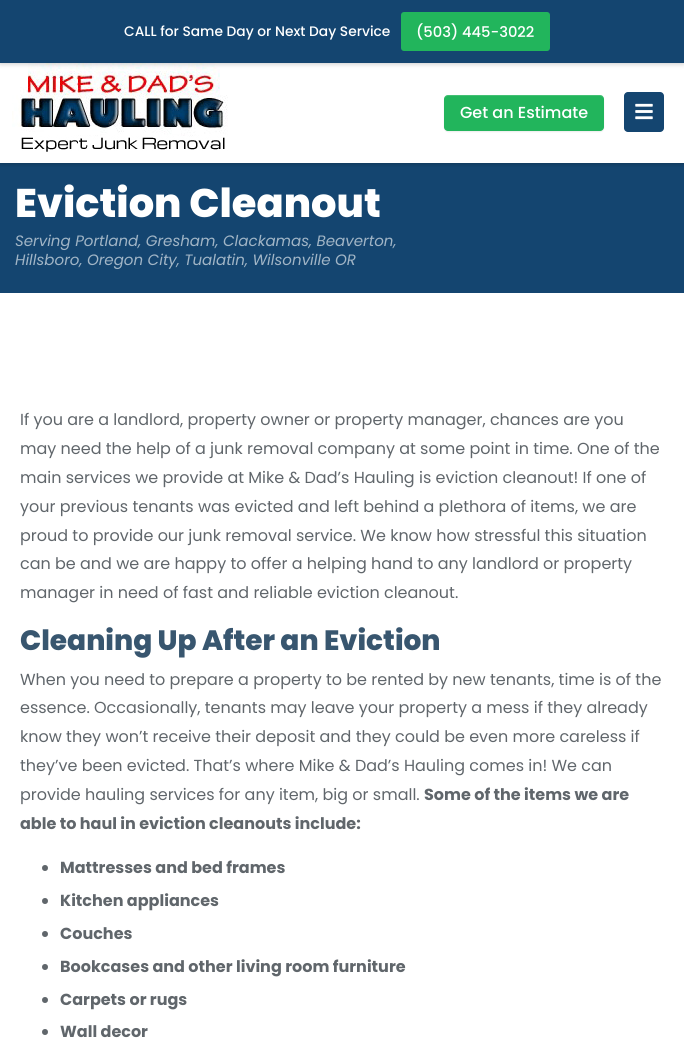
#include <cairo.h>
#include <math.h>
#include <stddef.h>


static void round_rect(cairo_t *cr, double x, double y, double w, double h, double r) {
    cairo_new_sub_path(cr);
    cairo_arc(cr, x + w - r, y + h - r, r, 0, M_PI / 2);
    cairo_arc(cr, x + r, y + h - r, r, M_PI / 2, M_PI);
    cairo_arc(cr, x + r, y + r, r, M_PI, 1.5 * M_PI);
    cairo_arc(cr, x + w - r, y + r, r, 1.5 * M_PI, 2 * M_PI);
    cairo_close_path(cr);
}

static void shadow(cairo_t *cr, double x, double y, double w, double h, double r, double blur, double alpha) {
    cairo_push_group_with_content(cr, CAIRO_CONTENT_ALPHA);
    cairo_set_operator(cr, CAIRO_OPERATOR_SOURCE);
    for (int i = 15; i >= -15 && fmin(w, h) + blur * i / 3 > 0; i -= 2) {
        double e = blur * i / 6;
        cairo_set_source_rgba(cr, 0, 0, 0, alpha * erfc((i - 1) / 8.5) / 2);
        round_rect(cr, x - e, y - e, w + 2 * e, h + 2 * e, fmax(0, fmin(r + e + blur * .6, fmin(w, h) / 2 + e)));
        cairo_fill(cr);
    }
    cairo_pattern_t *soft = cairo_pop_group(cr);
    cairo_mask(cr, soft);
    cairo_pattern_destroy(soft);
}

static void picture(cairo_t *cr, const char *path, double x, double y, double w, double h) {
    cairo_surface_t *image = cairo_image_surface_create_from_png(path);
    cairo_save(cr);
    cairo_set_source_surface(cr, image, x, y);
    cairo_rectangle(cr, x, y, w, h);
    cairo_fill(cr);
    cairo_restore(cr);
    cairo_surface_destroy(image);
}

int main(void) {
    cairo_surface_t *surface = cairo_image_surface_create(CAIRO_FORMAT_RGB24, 684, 1038);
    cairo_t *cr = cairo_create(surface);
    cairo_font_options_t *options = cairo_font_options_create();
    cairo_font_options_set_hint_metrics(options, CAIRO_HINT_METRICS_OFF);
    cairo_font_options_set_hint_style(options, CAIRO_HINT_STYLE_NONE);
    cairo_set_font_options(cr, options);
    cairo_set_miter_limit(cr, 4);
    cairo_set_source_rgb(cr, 1, 1, 1);
    cairo_paint(cr);
    cairo_set_source_rgb(cr, 0.082, 0.271, 0.439);
    cairo_rectangle(cr, 0, 163, 684, 130);
    cairo_fill(cr);
    cairo_save(cr);
    cairo_rectangle(cr, 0, 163, 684, 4);
    cairo_clip(cr);
    cairo_set_source_rgb(cr, 0, 0, 0);
    shadow(cr, 0, 63, 684, 100, 0, 3, 0.28);
    cairo_restore(cr);
    picture(cr, "img1.png", 12, 63, 216, 89);
    cairo_set_source_rgb(cr, 0, 0, 0);
    shadow(cr, 0, 0, 684, 63, 0, 3, 0.28);
    cairo_set_source_rgb(cr, 0.082, 0.271, 0.439);
    cairo_rectangle(cr, 0, 0, 684, 63);
    cairo_fill(cr);
    cairo_select_font_face(cr, "Poppins Medium", CAIRO_FONT_SLANT_NORMAL, CAIRO_FONT_WEIGHT_NORMAL);
    cairo_set_font_size(cr, 13.8);
    cairo_set_source_rgb(cr, 1, 1, 1);
    cairo_move_to(cr, 124, 36);
    cairo_show_text(cr, "CALL for Same Day or Next Day Service");
    cairo_set_source_rgb(cr, 0.133, 0.71, 0.361);
    round_rect(cr, 401, 12, 149, 39, 3);
    cairo_fill(cr);
    cairo_set_font_size(cr, 14.75);
    cairo_set_source_rgb(cr, 1, 1, 1);
    cairo_move_to(cr, 416, 37);
    cairo_show_text(cr, "(503) 445-3022");
    cairo_set_source_rgb(cr, 0, 0, 0);
    shadow(cr, 444, 96, 160, 36, 4, 0.5, 0.07);
    cairo_set_source_rgb(cr, 0.133, 0.71, 0.361);
    round_rect(cr, 444, 95, 160, 36, 4);
    cairo_fill(cr);
    cairo_set_source_rgba(cr, 1, 1, 1, 0.15);
    cairo_new_path(cr);
    cairo_move_to(cr, 448, 96);
    cairo_line_to(cr, 600, 96);
    cairo_curve_to(cr, 602, 96, 604, 98, 604, 100);
    cairo_curve_to(cr, 604, 98, 603, 96, 601, 95);
    cairo_line_to(cr, 447, 95);
    cairo_curve_to(cr, 445, 96, 444, 98, 444, 100);
    cairo_curve_to(cr, 444, 98, 446, 96, 448, 96);
    cairo_close_path(cr);
    cairo_fill(cr);
    cairo_set_font_size(cr, 16);
    cairo_set_source_rgb(cr, 1, 1, 1);
    cairo_move_to(cr, 460, 118);
    cairo_show_text(cr, "Get an Estimate");
    cairo_set_source_rgb(cr, 0.082, 0.271, 0.439);
    round_rect(cr, 624, 92, 40, 40, 4);
    cairo_fill(cr);
    picture(cr, "img2.png", 635, 103, 18, 17);
    cairo_select_font_face(cr, "Poppins ExtraBold", CAIRO_FONT_SLANT_NORMAL, CAIRO_FONT_WEIGHT_NORMAL);
    cairo_set_font_size(cr, 40);
    cairo_set_source_rgb(cr, 1, 1, 1);
    cairo_move_to(cr, 15, 217);
    cairo_show_text(cr, "Eviction Cleanout");
    cairo_select_font_face(cr, "Poppins", CAIRO_FONT_SLANT_ITALIC, CAIRO_FONT_WEIGHT_NORMAL);
    cairo_set_font_size(cr, 15.05);
    cairo_set_source_rgb(cr, 0.631, 0.71, 0.776);
    cairo_move_to(cr, 15, 246);
    cairo_show_text(cr, "Serving Portland, Gresham, Clackamas, Beaverton,");
    cairo_move_to(cr, 15, 265);
    cairo_show_text(cr, "Hillsboro, Oregon City, Tualatin, Wilsonville OR");
    cairo_select_font_face(cr, "Poppins", CAIRO_FONT_SLANT_NORMAL, CAIRO_FONT_WEIGHT_NORMAL);
    cairo_set_font_size(cr, 16);
    cairo_set_source_rgb(cr, 0.376, 0.4, 0.42);
    cairo_move_to(cr, 20, 425);
    cairo_show_text(cr, "If you are a landlord, property owner or property manager, chances are you");
    cairo_move_to(cr, 20, 454);
    cairo_show_text(cr, "may need the help of a junk removal company at some point in time. One of the");
    cairo_move_to(cr, 20, 483);
    cairo_show_text(cr, "main services we provide at Mike & Dad’s Hauling is eviction cleanout! If one of");
    cairo_move_to(cr, 20, 512);
    cairo_show_text(cr, "your previous tenants was evicted and left behind a plethora of items, we are");
    cairo_move_to(cr, 20, 541);
    cairo_show_text(cr, "proud to provide our junk removal service. We know how stressful this situation");
    cairo_move_to(cr, 20, 569);
    cairo_show_text(cr, "can be and we are happy to offer a helping hand to any landlord or property");
    cairo_move_to(cr, 20, 598);
    cairo_show_text(cr, "manager in need of fast and reliable eviction cleanout.");
    cairo_select_font_face(cr, "Poppins ExtraBold", CAIRO_FONT_SLANT_NORMAL, CAIRO_FONT_WEIGHT_NORMAL);
    cairo_set_font_size(cr, 28);
    cairo_set_source_rgb(cr, 0.22, 0.337, 0.435);
    cairo_move_to(cr, 20, 650);
    cairo_show_text(cr, "Cleaning Up After an Eviction");
    cairo_select_font_face(cr, "Poppins", CAIRO_FONT_SLANT_NORMAL, CAIRO_FONT_WEIGHT_NORMAL);
    cairo_set_font_size(cr, 16);
    cairo_set_source_rgb(cr, 0.376, 0.4, 0.42);
    cairo_move_to(cr, 20, 685);
    cairo_show_text(cr, "When you need to prepare a property to be rented by new tenants, time is of the");
    cairo_move_to(cr, 20, 713);
    cairo_show_text(cr, "essence. Occasionally, tenants may leave your property a mess if they already");
    cairo_move_to(cr, 20, 742);
    cairo_show_text(cr, "know they won’t receive their deposit and they could be even more careless if");
    cairo_move_to(cr, 20, 771);
    cairo_show_text(cr, "they’ve been evicted. That’s where Mike & Dad’s Hauling comes in! We can");
    cairo_move_to(cr, 20, 800);
    cairo_show_text(cr, "provide hauling services for any item, big or small.");
    cairo_select_font_face(cr, "Poppins", CAIRO_FONT_SLANT_NORMAL, CAIRO_FONT_WEIGHT_BOLD);
    cairo_move_to(cr, 424, 800);
    cairo_show_text(cr, "Some of the items we are");
    cairo_move_to(cr, 20, 829);
    cairo_show_text(cr, "able to haul in eviction cleanouts include:");
    cairo_new_path(cr);
    cairo_arc(cr, 45, 868, 3, 0, 2 * M_PI);
    cairo_fill(cr);
    cairo_move_to(cr, 60, 873);
    cairo_show_text(cr, "Mattresses and bed frames");
    cairo_new_path(cr);
    cairo_arc(cr, 45, 901, 3, 0, 2 * M_PI);
    cairo_fill(cr);
    cairo_move_to(cr, 60, 906);
    cairo_show_text(cr, "Kitchen appliances");
    cairo_new_path(cr);
    cairo_arc(cr, 45, 934, 3, 0, 2 * M_PI);
    cairo_fill(cr);
    cairo_move_to(cr, 60, 939);
    cairo_show_text(cr, "Couches");
    cairo_new_path(cr);
    cairo_arc(cr, 45, 967, 3, 0, 2 * M_PI);
    cairo_fill(cr);
    cairo_move_to(cr, 60, 972);
    cairo_show_text(cr, "Bookcases and other living room furniture");
    cairo_new_path(cr);
    cairo_arc(cr, 45, 1000, 3, 0, 2 * M_PI);
    cairo_fill(cr);
    cairo_move_to(cr, 60, 1005);
    cairo_show_text(cr, "Carpets or rugs");
    cairo_new_path(cr);
    cairo_arc(cr, 45, 1032, 3, 0, 2 * M_PI);
    cairo_fill(cr);
    cairo_move_to(cr, 60, 1037);
    cairo_show_text(cr, "Wall decor");
    cairo_surface_write_to_png(surface, "page.png");
    cairo_font_options_destroy(options);
    cairo_destroy(cr);
    cairo_surface_destroy(surface);
    return 0;
}
